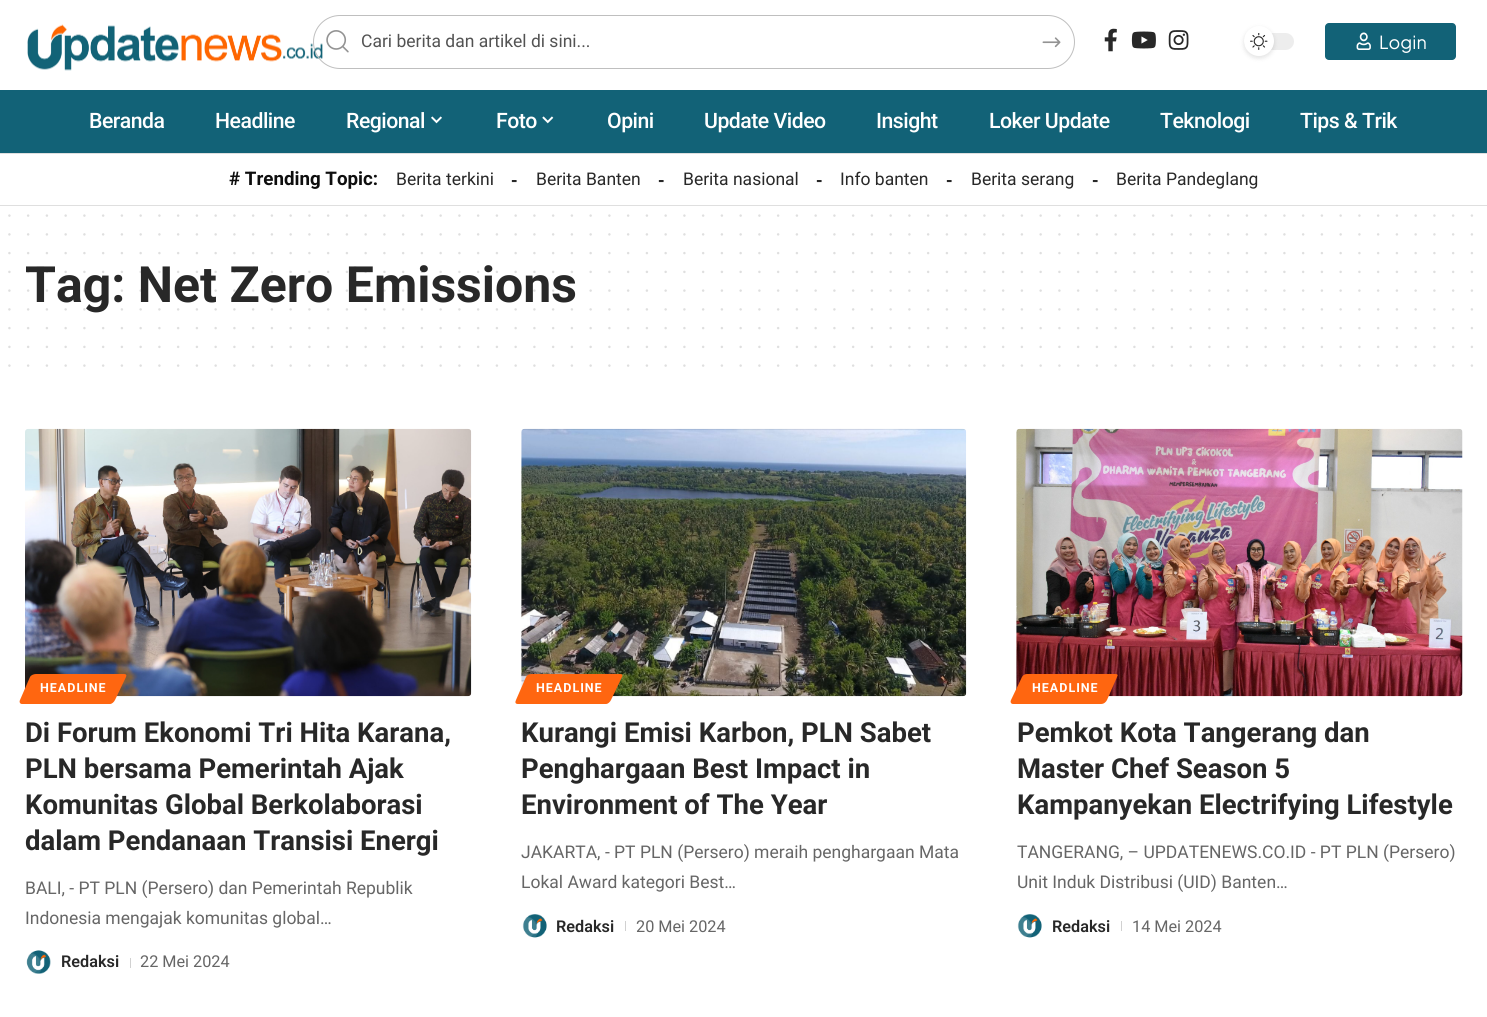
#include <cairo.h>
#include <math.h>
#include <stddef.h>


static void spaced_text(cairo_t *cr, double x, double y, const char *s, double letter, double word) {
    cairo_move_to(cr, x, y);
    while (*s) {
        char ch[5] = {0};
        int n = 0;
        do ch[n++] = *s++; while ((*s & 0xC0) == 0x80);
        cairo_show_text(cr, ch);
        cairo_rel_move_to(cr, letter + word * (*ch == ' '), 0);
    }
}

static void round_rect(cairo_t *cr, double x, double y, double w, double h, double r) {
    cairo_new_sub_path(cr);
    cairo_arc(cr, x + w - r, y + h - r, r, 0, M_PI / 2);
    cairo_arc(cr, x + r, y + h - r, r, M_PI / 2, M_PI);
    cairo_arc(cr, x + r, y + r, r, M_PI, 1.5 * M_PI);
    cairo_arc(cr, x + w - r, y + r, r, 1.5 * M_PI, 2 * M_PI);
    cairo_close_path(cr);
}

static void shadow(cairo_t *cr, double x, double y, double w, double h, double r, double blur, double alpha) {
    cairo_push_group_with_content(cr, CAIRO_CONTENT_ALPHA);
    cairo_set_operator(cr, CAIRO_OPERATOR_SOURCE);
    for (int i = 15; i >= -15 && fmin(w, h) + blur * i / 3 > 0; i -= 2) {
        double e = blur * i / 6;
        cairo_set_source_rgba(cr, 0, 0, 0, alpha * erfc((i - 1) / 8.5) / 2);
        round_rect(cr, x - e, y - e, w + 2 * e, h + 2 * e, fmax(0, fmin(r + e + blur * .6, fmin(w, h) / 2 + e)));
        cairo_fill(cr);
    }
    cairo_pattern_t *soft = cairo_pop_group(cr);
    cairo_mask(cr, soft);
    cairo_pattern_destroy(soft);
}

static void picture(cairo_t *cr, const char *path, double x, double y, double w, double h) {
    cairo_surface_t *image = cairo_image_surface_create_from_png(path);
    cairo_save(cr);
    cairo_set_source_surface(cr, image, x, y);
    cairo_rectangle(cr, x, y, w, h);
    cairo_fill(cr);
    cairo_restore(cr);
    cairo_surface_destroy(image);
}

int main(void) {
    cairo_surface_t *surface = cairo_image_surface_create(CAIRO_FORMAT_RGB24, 1487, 1017);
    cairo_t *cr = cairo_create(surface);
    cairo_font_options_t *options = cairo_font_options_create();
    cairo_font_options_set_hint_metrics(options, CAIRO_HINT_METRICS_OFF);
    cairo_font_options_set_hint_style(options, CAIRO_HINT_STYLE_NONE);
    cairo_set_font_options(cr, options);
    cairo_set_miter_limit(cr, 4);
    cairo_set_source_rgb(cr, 1, 1, 1);
    cairo_paint(cr);
    picture(cr, "img1.png", 27, 24, 296, 47);
    round_rect(cr, 313.5, 15.5, 761, 53, 26.5);
    cairo_set_source_rgb(cr, 0.749, 0.749, 0.749);
    cairo_set_line_width(cr, 1);
    cairo_stroke(cr);
    picture(cr, "img2.png", 326, 30, 23, 23);
    cairo_select_font_face(cr, "Roboto", CAIRO_FONT_SLANT_NORMAL, CAIRO_FONT_WEIGHT_NORMAL);
    cairo_set_font_size(cr, 17.5);
    cairo_set_source_rgb(cr, 0.325, 0.325, 0.325);
    cairo_move_to(cr, 361, 47);
    cairo_show_text(cr, "Cari berita dan artikel di sini...");
    picture(cr, "img3.png", 1042, 37, 19, 11);
    picture(cr, "img4.png", 1104, 28, 13, 24);
    picture(cr, "img5.png", 1131, 31, 25, 18);
    picture(cr, "img6.png", 1168, 30, 21, 20);
    cairo_set_source_rgb(cr, 0.929, 0.929, 0.929);
    round_rect(cr, 1244, 33, 50, 17, 8.5);
    cairo_fill(cr);
    cairo_set_source_rgb(cr, 0, 0, 0);
    shadow(cr, 1244, 28, 30, 30, 15, 2.5, 0.12);
    cairo_set_source_rgb(cr, 1, 1, 1);
    cairo_arc(cr, 1259, 41, 15, 0, 2 * M_PI);
    cairo_fill(cr);
    picture(cr, "img7.png", 1250, 33, 18, 17);
    cairo_set_source_rgb(cr, 0.071, 0.384, 0.467);
    round_rect(cr, 1325, 23, 131, 37, 4);
    cairo_fill(cr);
    picture(cr, "img8.png", 1356, 32, 15, 18);
    cairo_select_font_face(cr, "Plus Jakarta Sans", CAIRO_FONT_SLANT_NORMAL, CAIRO_FONT_WEIGHT_NORMAL);
    cairo_set_font_size(cr, 18);
    cairo_set_source_rgb(cr, 1, 1, 1);
    cairo_move_to(cr, 1379, 49);
    cairo_show_text(cr, "Login");
    cairo_set_source_rgb(cr, 0.071, 0.384, 0.467);
    cairo_rectangle(cr, 0, 90, 1487, 63);
    cairo_fill(cr);
    cairo_select_font_face(cr, "Roboto Medium", CAIRO_FONT_SLANT_NORMAL, CAIRO_FONT_WEIGHT_NORMAL);
    cairo_set_font_size(cr, 21.25);
    cairo_set_source_rgb(cr, 1, 1, 1);
    spaced_text(cr, 89, 128, "Beranda", -0.5, 0);
    spaced_text(cr, 215, 128, "Headline", -0.5, 0);
    spaced_text(cr, 346, 128, "Regional", -0.5, 0);
    picture(cr, "img9.png", 431, 116, 11, 8);
    spaced_text(cr, 496, 128, "Foto", -0.5, 0);
    picture(cr, "img10.png", 542, 116, 12, 8);
    spaced_text(cr, 607, 128, "Opini", -0.5, 0);
    spaced_text(cr, 704, 128, "Update Video", -0.5, 0);
    spaced_text(cr, 876, 128, "Insight", -0.5, 0);
    spaced_text(cr, 989, 128, "Loker Update", -0.5, 0);
    spaced_text(cr, 1160, 128, "Teknologi", -0.5, 0);
    spaced_text(cr, 1300, 128, "Tips & Trik", -0.5, 0);
    cairo_set_source_rgb(cr, 0.875, 0.875, 0.875);
    cairo_rectangle(cr, 0, 153, 1487, 1);
    cairo_fill(cr);
    cairo_rectangle(cr, 0, 205, 1487, 1);
    cairo_fill(cr);
    cairo_select_font_face(cr, "Roboto", CAIRO_FONT_SLANT_NORMAL, CAIRO_FONT_WEIGHT_BOLD);
    cairo_set_font_size(cr, 18.75);
    cairo_set_source_rgb(cr, 0.055, 0.055, 0.055);
    cairo_move_to(cr, 229, 185);
    cairo_show_text(cr, "# Trending Topic:");
    cairo_select_font_face(cr, "Roboto", CAIRO_FONT_SLANT_NORMAL, CAIRO_FONT_WEIGHT_NORMAL);
    cairo_set_font_size(cr, 17.5);
    cairo_set_source_rgb(cr, 0.157, 0.157, 0.157);
    cairo_move_to(cr, 396, 185);
    cairo_show_text(cr, "Berita terkini");
    cairo_select_font_face(cr, "Encode Sans Condensed", CAIRO_FONT_SLANT_NORMAL, CAIRO_FONT_WEIGHT_BOLD);
    cairo_move_to(cr, 511, 186);
    cairo_show_text(cr, "-");
    cairo_select_font_face(cr, "Roboto", CAIRO_FONT_SLANT_NORMAL, CAIRO_FONT_WEIGHT_NORMAL);
    cairo_move_to(cr, 536, 185);
    cairo_show_text(cr, "Berita Banten");
    cairo_select_font_face(cr, "Encode Sans Condensed", CAIRO_FONT_SLANT_NORMAL, CAIRO_FONT_WEIGHT_BOLD);
    cairo_move_to(cr, 658, 186);
    cairo_show_text(cr, "-");
    cairo_select_font_face(cr, "Roboto", CAIRO_FONT_SLANT_NORMAL, CAIRO_FONT_WEIGHT_NORMAL);
    cairo_move_to(cr, 683, 185);
    cairo_show_text(cr, "Berita nasional");
    cairo_select_font_face(cr, "Encode Sans Condensed", CAIRO_FONT_SLANT_NORMAL, CAIRO_FONT_WEIGHT_BOLD);
    cairo_move_to(cr, 816, 186);
    cairo_show_text(cr, "-");
    cairo_select_font_face(cr, "Roboto", CAIRO_FONT_SLANT_NORMAL, CAIRO_FONT_WEIGHT_NORMAL);
    cairo_move_to(cr, 840, 185);
    cairo_show_text(cr, "Info banten");
    cairo_select_font_face(cr, "Encode Sans Condensed", CAIRO_FONT_SLANT_NORMAL, CAIRO_FONT_WEIGHT_BOLD);
    cairo_move_to(cr, 946, 186);
    cairo_show_text(cr, "-");
    cairo_select_font_face(cr, "Roboto", CAIRO_FONT_SLANT_NORMAL, CAIRO_FONT_WEIGHT_NORMAL);
    cairo_move_to(cr, 971, 185);
    cairo_show_text(cr, "Berita serang");
    cairo_select_font_face(cr, "Encode Sans Condensed", CAIRO_FONT_SLANT_NORMAL, CAIRO_FONT_WEIGHT_BOLD);
    cairo_move_to(cr, 1092, 186);
    cairo_show_text(cr, "-");
    cairo_select_font_face(cr, "Roboto", CAIRO_FONT_SLANT_NORMAL, CAIRO_FONT_WEIGHT_NORMAL);
    cairo_move_to(cr, 1116, 185);
    cairo_show_text(cr, "Berita Pandeglang");
    cairo_new_path(cr);
    cairo_move_to(cr, 9.4, 215.6);
    cairo_line_to(cr, 1472.1, 215.6);
    cairo_set_source_rgb(cr, 0.875, 0.875, 0.875);
    cairo_set_line_width(cr, 2.5);
    cairo_set_line_cap(cr, CAIRO_LINE_CAP_ROUND);
    cairo_set_dash(cr, (double[]){0, 18.75}, 2, 0);
    cairo_stroke(cr);
    cairo_new_path(cr);
    cairo_move_to(cr, 9.4, 234.4);
    cairo_line_to(cr, 1472.1, 234.4);
    cairo_stroke(cr);
    cairo_new_path(cr);
    cairo_move_to(cr, 9.4, 253.1);
    cairo_line_to(cr, 1472.1, 253.1);
    cairo_stroke(cr);
    cairo_select_font_face(cr, "Roboto", CAIRO_FONT_SLANT_NORMAL, CAIRO_FONT_WEIGHT_BOLD);
    cairo_set_font_size(cr, 50);
    cairo_set_source_rgb(cr, 0.157, 0.157, 0.157);
    cairo_move_to(cr, 25, 302);
    cairo_show_text(cr, "Tag: Net Zero Emissions");
    cairo_new_path(cr);
    cairo_move_to(cr, 9.4, 271.9);
    cairo_line_to(cr, 1472.1, 271.9);
    cairo_set_source_rgba(cr, 0.157, 0.157, 0.157, 0.15);
    cairo_stroke(cr);
    cairo_new_path(cr);
    cairo_move_to(cr, 9.4, 290.6);
    cairo_line_to(cr, 1472.1, 290.6);
    cairo_stroke(cr);
    cairo_new_path(cr);
    cairo_move_to(cr, 9.4, 309.4);
    cairo_line_to(cr, 1472.1, 309.4);
    cairo_stroke(cr);
    cairo_new_path(cr);
    cairo_move_to(cr, 9.4, 328.1);
    cairo_line_to(cr, 1472.1, 328.1);
    cairo_set_source_rgb(cr, 0.875, 0.875, 0.875);
    cairo_stroke(cr);
    cairo_new_path(cr);
    cairo_move_to(cr, 9.4, 346.9);
    cairo_line_to(cr, 1472.1, 346.9);
    cairo_stroke(cr);
    cairo_new_path(cr);
    cairo_move_to(cr, 9.4, 365.6);
    cairo_line_to(cr, 1472.1, 365.6);
    cairo_stroke(cr);
    picture(cr, "img11.png", 25, 428, 447, 269);
    cairo_set_source_rgb(cr, 1, 0.4, 0.063);
    cairo_new_path(cr);
    cairo_move_to(cr, 36, 674);
    cairo_line_to(cr, 124, 674);
    cairo_curve_to(cr, 126, 674, 127, 675, 126, 677);
    cairo_line_to(cr, 115, 700);
    cairo_curve_to(cr, 114, 702, 112, 704, 110, 704);
    cairo_line_to(cr, 22, 704);
    cairo_curve_to(cr, 20, 704, 19, 702, 20, 700);
    cairo_line_to(cr, 30, 677);
    cairo_curve_to(cr, 31, 675, 34, 674, 36, 674);
    cairo_close_path(cr);
    cairo_fill(cr);
    cairo_set_font_size(cr, 12.5);
    cairo_set_source_rgb(cr, 1, 1, 1);
    spaced_text(cr, 40, 692, "HEADLINE", 1, 0);
    cairo_set_font_size(cr, 27.5);
    cairo_set_source_rgb(cr, 0.157, 0.157, 0.157);
    cairo_move_to(cr, 25, 742);
    cairo_show_text(cr, "Di Forum Ekonomi Tri Hita Karana,");
    cairo_move_to(cr, 25, 778);
    cairo_show_text(cr, "PLN bersama Pemerintah Ajak");
    cairo_move_to(cr, 25, 814);
    cairo_show_text(cr, "Komunitas Global Berkolaborasi");
    cairo_move_to(cr, 25, 850);
    cairo_show_text(cr, "dalam Pendanaan Transisi Energi");
    cairo_select_font_face(cr, "Roboto", CAIRO_FONT_SLANT_NORMAL, CAIRO_FONT_WEIGHT_NORMAL);
    cairo_set_font_size(cr, 17.5);
    cairo_set_source_rgb(cr, 0.4, 0.4, 0.4);
    cairo_move_to(cr, 25, 894);
    cairo_show_text(cr, "BALI, - PT PLN (Persero) dan Pemerintah Republik");
    cairo_move_to(cr, 25, 924);
    cairo_show_text(cr, "Indonesia mengajak komunitas global…");
    picture(cr, "img12.png", 26, 950, 25, 24);
    cairo_select_font_face(cr, "Roboto SemiBold", CAIRO_FONT_SLANT_NORMAL, CAIRO_FONT_WEIGHT_NORMAL);
    cairo_set_font_size(cr, 16.25);
    cairo_set_source_rgb(cr, 0.157, 0.157, 0.157);
    cairo_move_to(cr, 61, 967);
    cairo_show_text(cr, "Redaksi");
    cairo_set_source_rgb(cr, 0.82, 0.82, 0.82);
    cairo_rectangle(cr, 130, 958, 1, 10);
    cairo_fill(cr);
    cairo_select_font_face(cr, "Roboto", CAIRO_FONT_SLANT_NORMAL, CAIRO_FONT_WEIGHT_NORMAL);
    cairo_set_source_rgb(cr, 0.4, 0.4, 0.4);
    cairo_move_to(cr, 140, 967);
    cairo_show_text(cr, "22 Mei 2024");
    picture(cr, "img13.png", 521, 428, 446, 269);
    cairo_set_source_rgb(cr, 1, 0.4, 0.063);
    cairo_new_path(cr);
    cairo_move_to(cr, 532, 674);
    cairo_line_to(cr, 620, 674);
    cairo_curve_to(cr, 622, 674, 623, 675, 622, 677);
    cairo_line_to(cr, 611, 700);
    cairo_curve_to(cr, 610, 702, 608, 704, 606, 704);
    cairo_line_to(cr, 518, 704);
    cairo_curve_to(cr, 515, 704, 515, 702, 516, 700);
    cairo_line_to(cr, 526, 677);
    cairo_curve_to(cr, 527, 675, 529, 674, 532, 674);
    cairo_close_path(cr);
    cairo_fill(cr);
    cairo_select_font_face(cr, "Roboto", CAIRO_FONT_SLANT_NORMAL, CAIRO_FONT_WEIGHT_BOLD);
    cairo_set_font_size(cr, 12.5);
    cairo_set_source_rgb(cr, 1, 1, 1);
    spaced_text(cr, 536, 692, "HEADLINE", 1, 0);
    cairo_set_font_size(cr, 27.5);
    cairo_set_source_rgb(cr, 0.157, 0.157, 0.157);
    cairo_move_to(cr, 521, 742);
    cairo_show_text(cr, "Kurangi Emisi Karbon, PLN Sabet");
    cairo_move_to(cr, 521, 778);
    cairo_show_text(cr, "Penghargaan Best Impact in");
    cairo_move_to(cr, 521, 814);
    cairo_show_text(cr, "Environment of The Year");
    cairo_select_font_face(cr, "Roboto", CAIRO_FONT_SLANT_NORMAL, CAIRO_FONT_WEIGHT_NORMAL);
    cairo_set_font_size(cr, 17.5);
    cairo_set_source_rgb(cr, 0.4, 0.4, 0.4);
    cairo_move_to(cr, 521, 858);
    cairo_show_text(cr, "JAKARTA, - PT PLN (Persero) meraih penghargaan Mata");
    cairo_move_to(cr, 521, 888);
    cairo_show_text(cr, "Lokal Award kategori Best…");
    picture(cr, "img14.png", 522, 914, 25, 24);
    cairo_select_font_face(cr, "Roboto SemiBold", CAIRO_FONT_SLANT_NORMAL, CAIRO_FONT_WEIGHT_NORMAL);
    cairo_set_font_size(cr, 16.25);
    cairo_set_source_rgb(cr, 0.157, 0.157, 0.157);
    cairo_move_to(cr, 556, 932);
    cairo_show_text(cr, "Redaksi");
    cairo_set_source_rgb(cr, 0.82, 0.82, 0.82);
    cairo_rectangle(cr, 625, 921, 1, 10);
    cairo_fill(cr);
    cairo_select_font_face(cr, "Roboto", CAIRO_FONT_SLANT_NORMAL, CAIRO_FONT_WEIGHT_NORMAL);
    cairo_set_source_rgb(cr, 0.4, 0.4, 0.4);
    cairo_move_to(cr, 636, 932);
    cairo_show_text(cr, "20 Mei 2024");
    picture(cr, "img15.png", 1016, 428, 447, 269);
    cairo_set_source_rgb(cr, 1, 0.4, 0.063);
    cairo_new_path(cr);
    cairo_move_to(cr, 1027, 674);
    cairo_line_to(cr, 1115, 674);
    cairo_curve_to(cr, 1118, 674, 1118, 675, 1117, 677);
    cairo_line_to(cr, 1107, 700);
    cairo_curve_to(cr, 1106, 702, 1104, 704, 1101, 704);
    cairo_line_to(cr, 1013, 704);
    cairo_curve_to(cr, 1011, 704, 1010, 702, 1011, 700);
    cairo_line_to(cr, 1022, 677);
    cairo_curve_to(cr, 1023, 675, 1025, 674, 1027, 674);
    cairo_close_path(cr);
    cairo_fill(cr);
    cairo_select_font_face(cr, "Roboto", CAIRO_FONT_SLANT_NORMAL, CAIRO_FONT_WEIGHT_BOLD);
    cairo_set_font_size(cr, 12.5);
    cairo_set_source_rgb(cr, 1, 1, 1);
    spaced_text(cr, 1032, 692, "HEADLINE", 1, 0);
    cairo_set_font_size(cr, 27.5);
    cairo_set_source_rgb(cr, 0.157, 0.157, 0.157);
    cairo_move_to(cr, 1017, 742);
    cairo_show_text(cr, "Pemkot Kota Tangerang dan");
    cairo_move_to(cr, 1017, 778);
    cairo_show_text(cr, "Master Chef Season 5");
    cairo_move_to(cr, 1017, 814);
    cairo_show_text(cr, "Kampanyekan Electrifying Lifestyle");
    cairo_select_font_face(cr, "Roboto", CAIRO_FONT_SLANT_NORMAL, CAIRO_FONT_WEIGHT_NORMAL);
    cairo_set_font_size(cr, 17.5);
    cairo_set_source_rgb(cr, 0.4, 0.4, 0.4);
    cairo_move_to(cr, 1017, 858);
    cairo_show_text(cr, "TANGERANG, – UPDATENEWS.CO.ID - PT PLN (Persero)");
    cairo_move_to(cr, 1017, 888);
    cairo_show_text(cr, "Unit Induk Distribusi (UID) Banten…");
    picture(cr, "img14.png", 1017, 914, 25, 24);
    cairo_select_font_face(cr, "Roboto SemiBold", CAIRO_FONT_SLANT_NORMAL, CAIRO_FONT_WEIGHT_NORMAL);
    cairo_set_font_size(cr, 16.25);
    cairo_set_source_rgb(cr, 0.157, 0.157, 0.157);
    cairo_move_to(cr, 1052, 932);
    cairo_show_text(cr, "Redaksi");
    cairo_set_source_rgb(cr, 0.82, 0.82, 0.82);
    cairo_rectangle(cr, 1121, 921, 1, 10);
    cairo_fill(cr);
    cairo_select_font_face(cr, "Roboto", CAIRO_FONT_SLANT_NORMAL, CAIRO_FONT_WEIGHT_NORMAL);
    cairo_set_source_rgb(cr, 0.4, 0.4, 0.4);
    cairo_move_to(cr, 1132, 932);
    cairo_show_text(cr, "14 Mei 2024");
    cairo_surface_write_to_png(surface, "page.png");
    cairo_font_options_destroy(options);
    cairo_destroy(cr);
    cairo_surface_destroy(surface);
    return 0;
}
